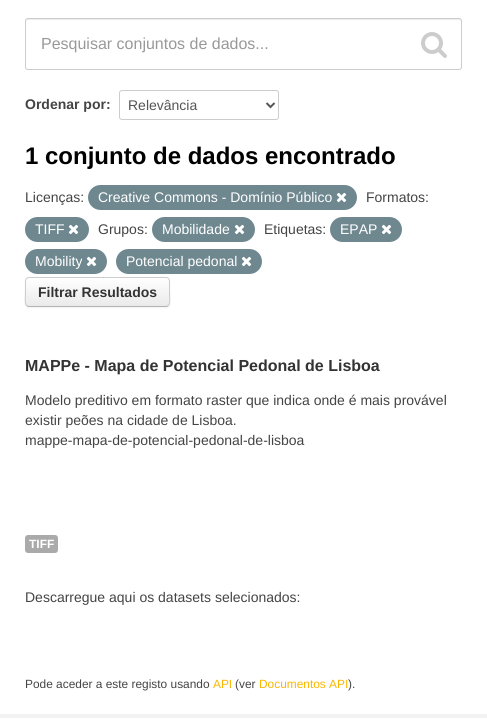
#include <cairo.h>
#include <math.h>
#include <stddef.h>


static void round_rect(cairo_t *cr, double x, double y, double w, double h, double r) {
    cairo_new_sub_path(cr);
    cairo_arc(cr, x + w - r, y + h - r, r, 0, M_PI / 2);
    cairo_arc(cr, x + r, y + h - r, r, M_PI / 2, M_PI);
    cairo_arc(cr, x + r, y + r, r, M_PI, 1.5 * M_PI);
    cairo_arc(cr, x + w - r, y + r, r, 1.5 * M_PI, 2 * M_PI);
    cairo_close_path(cr);
}

static void shadow(cairo_t *cr, double x, double y, double w, double h, double r, double blur, double alpha) {
    cairo_push_group_with_content(cr, CAIRO_CONTENT_ALPHA);
    cairo_set_operator(cr, CAIRO_OPERATOR_SOURCE);
    for (int i = 15; i >= -15 && fmin(w, h) + blur * i / 3 > 0; i -= 2) {
        double e = blur * i / 6;
        cairo_set_source_rgba(cr, 0, 0, 0, alpha * erfc((i - 1) / 8.5) / 2);
        round_rect(cr, x - e, y - e, w + 2 * e, h + 2 * e, fmax(0, fmin(r + e + blur * .6, fmin(w, h) / 2 + e)));
        cairo_fill(cr);
    }
    cairo_pattern_t *soft = cairo_pop_group(cr);
    cairo_mask(cr, soft);
    cairo_pattern_destroy(soft);
}

static void picture(cairo_t *cr, const char *path, double x, double y, double w, double h) {
    cairo_surface_t *image = cairo_image_surface_create_from_png(path);
    cairo_save(cr);
    cairo_set_source_surface(cr, image, x, y);
    cairo_rectangle(cr, x, y, w, h);
    cairo_fill(cr);
    cairo_restore(cr);
    cairo_surface_destroy(image);
}

int main(void) {
    cairo_surface_t *surface = cairo_image_surface_create(CAIRO_FORMAT_RGB24, 487, 722);
    cairo_t *cr = cairo_create(surface);
    cairo_font_options_t *options = cairo_font_options_create();
    cairo_font_options_set_hint_metrics(options, CAIRO_HINT_METRICS_OFF);
    cairo_font_options_set_hint_style(options, CAIRO_HINT_STYLE_NONE);
    cairo_set_font_options(cr, options);
    cairo_set_miter_limit(cr, 4);
    cairo_pattern_t *gradient;
    cairo_set_source_rgb(cr, 1, 1, 1);
    cairo_paint(cr);
    cairo_rectangle(cr, -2, -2, 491, 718);
    cairo_set_source_rgb(cr, 0.949, 0.949, 0.949);
    cairo_set_line_width(cr, 4);
    cairo_stroke(cr);
    cairo_set_source_rgb(cr, 0.925, 0.925, 0.925);
    cairo_new_path(cr);
    cairo_move_to(cr, 28, 20);
    cairo_line_to(cr, 459, 20);
    cairo_curve_to(cr, 460, 20, 461, 21, 461, 22);
    cairo_line_to(cr, 461, 20);
    cairo_line_to(cr, 459, 19);
    cairo_line_to(cr, 28, 19);
    cairo_curve_to(cr, 26, 19, 26, 21, 26, 22);
    cairo_curve_to(cr, 26, 21, 27, 20, 28, 20);
    cairo_close_path(cr);
    cairo_fill(cr);
    round_rect(cr, 25.5, 18.5, 436, 51, 2.5);
    cairo_set_source_rgb(cr, 0.8, 0.8, 0.8);
    cairo_set_line_width(cr, 1);
    cairo_stroke(cr);
    cairo_select_font_face(cr, "Liberation Sans", CAIRO_FONT_SLANT_NORMAL, CAIRO_FONT_WEIGHT_NORMAL);
    cairo_set_font_size(cr, 16);
    cairo_set_source_rgb(cr, 0.6, 0.6, 0.6);
    cairo_move_to(cr, 41, 49);
    cairo_show_text(cr, "Pesquisar conjuntos de dados...");
    picture(cr, "img1.png", 421, 32, 26, 26);
    cairo_select_font_face(cr, "Liberation Sans", CAIRO_FONT_SLANT_NORMAL, CAIRO_FONT_WEIGHT_BOLD);
    cairo_set_font_size(cr, 14);
    cairo_set_source_rgb(cr, 0.267, 0.267, 0.267);
    cairo_move_to(cr, 25, 109);
    cairo_show_text(cr, "Ordenar por:");
    round_rect(cr, 119.5, 90.5, 159, 29, 2.5);
    cairo_set_source_rgb(cr, 0.8, 0.8, 0.8);
    cairo_stroke(cr);
    cairo_new_path(cr);
    cairo_move_to(cr, 266.5, 103);
    cairo_line_to(cr, 270.5, 107);
    cairo_line_to(cr, 274.5, 103);
    cairo_set_source_rgb(cr, 0.333, 0.333, 0.333);
    cairo_set_line_width(cr, 2);
    cairo_stroke(cr);
    cairo_select_font_face(cr, "Liberation Sans", CAIRO_FONT_SLANT_NORMAL, CAIRO_FONT_WEIGHT_NORMAL);
    cairo_move_to(cr, 128, 110);
    cairo_show_text(cr, "Relevância");
    cairo_select_font_face(cr, "Liberation Sans", CAIRO_FONT_SLANT_NORMAL, CAIRO_FONT_WEIGHT_BOLD);
    cairo_set_font_size(cr, 24);
    cairo_set_source_rgb(cr, 0, 0, 0);
    cairo_move_to(cr, 25, 164);
    cairo_show_text(cr, "1 conjunto de dados encontrado");
    cairo_select_font_face(cr, "Liberation Sans", CAIRO_FONT_SLANT_NORMAL, CAIRO_FONT_WEIGHT_NORMAL);
    cairo_set_font_size(cr, 14);
    cairo_set_source_rgb(cr, 0.267, 0.267, 0.267);
    cairo_move_to(cr, 25, 202);
    cairo_show_text(cr, "Licenças:");
    cairo_set_source_rgb(cr, 0.435, 0.533, 0.565);
    round_rect(cr, 88, 185, 269, 25, 12.5);
    cairo_fill(cr);
    cairo_set_source_rgb(cr, 1, 1, 1);
    cairo_move_to(cr, 98, 202);
    cairo_show_text(cr, "Creative Commons - Domínio Público");
    picture(cr, "img2.png", 336, 192, 11, 11);
    cairo_set_source_rgb(cr, 0.267, 0.267, 0.267);
    cairo_move_to(cr, 366, 202);
    cairo_show_text(cr, "Formatos:");
    cairo_set_source_rgb(cr, 0.435, 0.533, 0.565);
    round_rect(cr, 25, 217, 64, 25, 12.5);
    cairo_fill(cr);
    cairo_set_source_rgb(cr, 1, 1, 1);
    cairo_move_to(cr, 35, 234);
    cairo_show_text(cr, "TIFF");
    picture(cr, "img2.png", 68, 224, 11, 11);
    cairo_set_source_rgb(cr, 0.267, 0.267, 0.267);
    cairo_move_to(cr, 98, 234);
    cairo_show_text(cr, "Grupos:");
    cairo_set_source_rgb(cr, 0.435, 0.533, 0.565);
    round_rect(cr, 152, 217, 103, 25, 12.5);
    cairo_fill(cr);
    cairo_set_source_rgb(cr, 1, 1, 1);
    cairo_move_to(cr, 162, 234);
    cairo_show_text(cr, "Mobilidade");
    picture(cr, "img2.png", 234, 224, 11, 11);
    cairo_set_source_rgb(cr, 0.267, 0.267, 0.267);
    cairo_move_to(cr, 264, 234);
    cairo_show_text(cr, "Etiquetas:");
    cairo_set_source_rgb(cr, 0.435, 0.533, 0.565);
    round_rect(cr, 330, 217, 72, 25, 12.5);
    cairo_fill(cr);
    cairo_set_source_rgb(cr, 1, 1, 1);
    cairo_move_to(cr, 340, 234);
    cairo_show_text(cr, "EPAP");
    picture(cr, "img2.png", 381, 224, 11, 11);
    cairo_set_source_rgb(cr, 0.435, 0.533, 0.565);
    round_rect(cr, 25, 249, 82, 25, 12.5);
    cairo_fill(cr);
    cairo_set_source_rgb(cr, 1, 1, 1);
    cairo_move_to(cr, 35, 266);
    cairo_show_text(cr, "Mobility");
    picture(cr, "img2.png", 86, 256, 11, 11);
    cairo_set_source_rgb(cr, 0.435, 0.533, 0.565);
    round_rect(cr, 116, 249, 146, 25, 12.5);
    cairo_fill(cr);
    cairo_set_source_rgb(cr, 1, 1, 1);
    cairo_move_to(cr, 126, 266);
    cairo_show_text(cr, "Potencial pedonal");
    picture(cr, "img2.png", 241, 256, 11, 11);
    cairo_set_source_rgb(cr, 0, 0, 0);
    shadow(cr, 25, 278, 145, 30, 4, 1, 0.05);
    cairo_save(cr);
    round_rect(cr, 25, 277, 145, 30, 4);
    cairo_clip(cr);
    gradient = cairo_pattern_create_linear(98, 278, 98, 306);
    cairo_pattern_add_color_stop_rgba(gradient, 0, 1, 1, 1, 1);
    cairo_pattern_add_color_stop_rgba(gradient, 1, 0.918, 0.918, 0.918, 1);
    cairo_set_source(cr, gradient);
    cairo_pattern_destroy(gradient);
    cairo_rectangle(cr, 25, 278, 145, 28);
    cairo_fill(cr);
    cairo_restore(cr);
    cairo_new_path(cr);
    cairo_move_to(cr, 168.5, 305.5);
    cairo_curve_to(cr, 168, 306, 167, 306.5, 166, 306.5);
    cairo_line_to(cr, 29, 306.5);
    cairo_curve_to(cr, 28, 306.5, 27, 306, 26.5, 305.5);
    cairo_set_source_rgb(cr, 0.702, 0.702, 0.702);
    cairo_set_line_width(cr, 1);
    cairo_stroke(cr);
    cairo_new_path(cr);
    cairo_move_to(cr, 26.5, 305.5);
    cairo_curve_to(cr, 24.5, 303.5, 25.5, 295, 25.5, 292);
    cairo_line_to(cr, 25.5, 284.5);
    cairo_curve_to(cr, 25.5, 282, 25, 277.5, 29, 277.5);
    cairo_line_to(cr, 166, 277.5);
    cairo_curve_to(cr, 170, 277.5, 169.5, 282, 169.5, 284.5);
    cairo_line_to(cr, 169.5, 292);
    cairo_curve_to(cr, 169.5, 295, 170.5, 303.5, 168.5, 305.5);
    cairo_set_source_rgb(cr, 0.8, 0.8, 0.8);
    cairo_stroke(cr);
    cairo_select_font_face(cr, "Liberation Sans", CAIRO_FONT_SLANT_NORMAL, CAIRO_FONT_WEIGHT_BOLD);
    cairo_set_source_rgb(cr, 0.2, 0.2, 0.2);
    cairo_move_to(cr, 38, 297);
    cairo_show_text(cr, "Filtrar Resultados");
    cairo_set_font_size(cr, 16);
    cairo_move_to(cr, 25, 371);
    cairo_show_text(cr, "MAPPe - Mapa de Potencial Pedonal de Lisboa");
    cairo_select_font_face(cr, "Liberation Sans", CAIRO_FONT_SLANT_NORMAL, CAIRO_FONT_WEIGHT_NORMAL);
    cairo_set_font_size(cr, 14);
    cairo_set_source_rgb(cr, 0.267, 0.267, 0.267);
    cairo_move_to(cr, 25, 405);
    cairo_show_text(cr, "Modelo preditivo em formato raster que indica onde é mais provável");
    cairo_move_to(cr, 25, 425);
    cairo_show_text(cr, "existir peões na cidade de Lisboa.");
    cairo_move_to(cr, 25, 445);
    cairo_show_text(cr, "mappe-mapa-de-potencial-pedonal-de-lisboa");
    cairo_set_source_rgb(cr, 0.667, 0.667, 0.667);
    round_rect(cr, 25, 535, 33, 18, 3);
    cairo_fill(cr);
    cairo_select_font_face(cr, "Liberation Sans", CAIRO_FONT_SLANT_NORMAL, CAIRO_FONT_WEIGHT_BOLD);
    cairo_set_font_size(cr, 12);
    cairo_set_source_rgb(cr, 1, 1, 1);
    cairo_move_to(cr, 29, 548);
    cairo_show_text(cr, "TIFF");
    cairo_select_font_face(cr, "Liberation Sans", CAIRO_FONT_SLANT_NORMAL, CAIRO_FONT_WEIGHT_NORMAL);
    cairo_set_font_size(cr, 14);
    cairo_set_source_rgb(cr, 0.267, 0.267, 0.267);
    cairo_move_to(cr, 25, 602);
    cairo_show_text(cr, "Descarregue aqui os datasets selecionados:");
    cairo_set_font_size(cr, 11.9);
    cairo_move_to(cr, 25, 688);
    cairo_show_text(cr, "Pode aceder a este registo usando");
    cairo_set_source_rgb(cr, 0.984, 0.714, 0);
    cairo_move_to(cr, 213, 688);
    cairo_show_text(cr, "API");
    cairo_set_source_rgb(cr, 0.267, 0.267, 0.267);
    cairo_move_to(cr, 235, 688);
    cairo_show_text(cr, "(ver");
    cairo_set_source_rgb(cr, 0.984, 0.714, 0);
    cairo_move_to(cr, 259, 688);
    cairo_show_text(cr, "Documentos API");
    cairo_set_source_rgb(cr, 0.267, 0.267, 0.267);
    cairo_move_to(cr, 348, 688);
    cairo_show_text(cr, ").");
    cairo_surface_write_to_png(surface, "page.png");
    cairo_font_options_destroy(options);
    cairo_destroy(cr);
    cairo_surface_destroy(surface);
    return 0;
}
